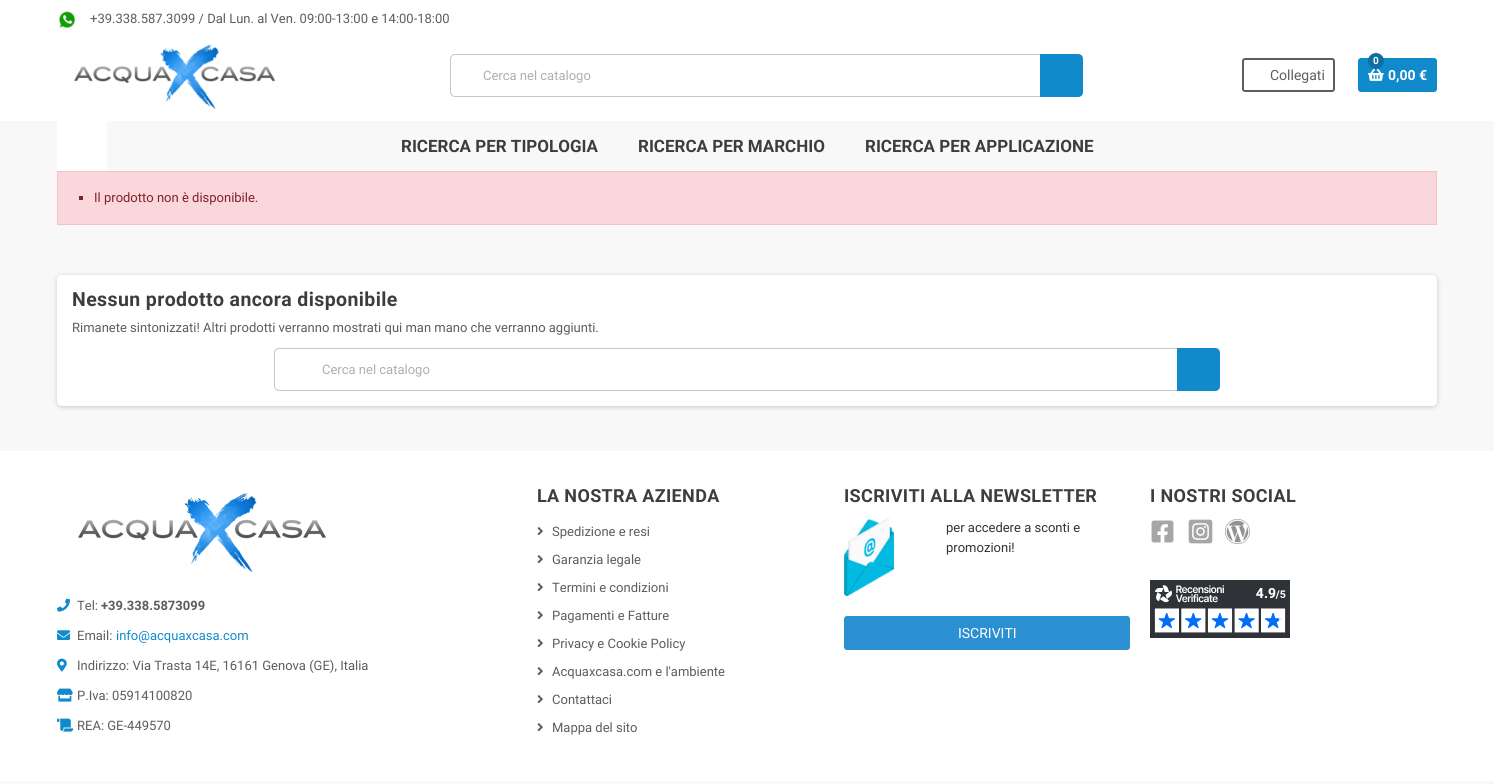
#include <cairo.h>
#include <math.h>
#include <stddef.h>


static void spaced_text(cairo_t *cr, double x, double y, const char *s, double letter, double word) {
    cairo_move_to(cr, x, y);
    while (*s) {
        char ch[5] = {0};
        int n = 0;
        do ch[n++] = *s++; while ((*s & 0xC0) == 0x80);
        cairo_show_text(cr, ch);
        cairo_rel_move_to(cr, letter + word * (*ch == ' '), 0);
    }
}

static void round_rect(cairo_t *cr, double x, double y, double w, double h, double r) {
    cairo_new_sub_path(cr);
    cairo_arc(cr, x + w - r, y + h - r, r, 0, M_PI / 2);
    cairo_arc(cr, x + r, y + h - r, r, M_PI / 2, M_PI);
    cairo_arc(cr, x + r, y + r, r, M_PI, 1.5 * M_PI);
    cairo_arc(cr, x + w - r, y + r, r, 1.5 * M_PI, 2 * M_PI);
    cairo_close_path(cr);
}

static void shadow(cairo_t *cr, double x, double y, double w, double h, double r, double blur, double alpha) {
    cairo_push_group_with_content(cr, CAIRO_CONTENT_ALPHA);
    cairo_set_operator(cr, CAIRO_OPERATOR_SOURCE);
    for (int i = 15; i >= -15 && fmin(w, h) + blur * i / 3 > 0; i -= 2) {
        double e = blur * i / 6;
        cairo_set_source_rgba(cr, 0, 0, 0, alpha * erfc((i - 1) / 8.5) / 2);
        round_rect(cr, x - e, y - e, w + 2 * e, h + 2 * e, fmax(0, fmin(r + e + blur * .6, fmin(w, h) / 2 + e)));
        cairo_fill(cr);
    }
    cairo_pattern_t *soft = cairo_pop_group(cr);
    cairo_mask(cr, soft);
    cairo_pattern_destroy(soft);
}

static void picture(cairo_t *cr, const char *path, double x, double y, double w, double h) {
    cairo_surface_t *image = cairo_image_surface_create_from_png(path);
    cairo_save(cr);
    cairo_set_source_surface(cr, image, x, y);
    cairo_rectangle(cr, x, y, w, h);
    cairo_fill(cr);
    cairo_restore(cr);
    cairo_surface_destroy(image);
}

int main(void) {
    cairo_surface_t *surface = cairo_image_surface_create(CAIRO_FORMAT_RGB24, 1494, 784);
    cairo_t *cr = cairo_create(surface);
    cairo_font_options_t *options = cairo_font_options_create();
    cairo_font_options_set_hint_metrics(options, CAIRO_HINT_METRICS_OFF);
    cairo_font_options_set_hint_style(options, CAIRO_HINT_STYLE_NONE);
    cairo_set_font_options(cr, options);
    cairo_set_miter_limit(cr, 4);
    cairo_set_source_rgb(cr, 1, 1, 1);
    cairo_paint(cr);
    picture(cr, "img1.png", 58, 10, 19, 19);
    cairo_select_font_face(cr, "Roboto", CAIRO_FONT_SLANT_NORMAL, CAIRO_FONT_WEIGHT_NORMAL);
    cairo_set_font_size(cr, 13);
    cairo_set_source_rgb(cr, 0.365, 0.365, 0.365);
    cairo_move_to(cr, 90, 23);
    cairo_show_text(cr, "+39.338.587.3099 / Dal Lun. al Ven. 09:00-13:00 e 14:00-18:00");
    picture(cr, "img2.png", 74, 44, 202, 65);
    round_rect(cr, 450.5, 54.5, 631, 42, 4.5);
    cairo_set_source_rgb(cr, 0.78, 0.78, 0.78);
    cairo_set_line_width(cr, 1);
    cairo_stroke(cr);
    cairo_set_source_rgb(cr, 0.682, 0.682, 0.682);
    cairo_move_to(cr, 483, 80);
    cairo_show_text(cr, "Cerca nel catalogo");
    cairo_set_source_rgb(cr, 0.067, 0.541, 0.796);
    cairo_new_path(cr);
    cairo_move_to(cr, 1040, 54);
    cairo_line_to(cr, 1078, 54);
    cairo_curve_to(cr, 1081, 54, 1083, 56, 1083, 59);
    cairo_line_to(cr, 1083, 92);
    cairo_curve_to(cr, 1083, 95, 1081, 97, 1078, 97);
    cairo_line_to(cr, 1040, 97);
    cairo_close_path(cr);
    cairo_fill(cr);
    round_rect(cr, 1243, 59, 91, 32, 2);
    cairo_set_source_rgb(cr, 0.365, 0.365, 0.365);
    cairo_set_line_width(cr, 2);
    cairo_stroke(cr);
    cairo_set_font_size(cr, 14);
    cairo_move_to(cr, 1270, 80);
    cairo_show_text(cr, "Collegati");
    cairo_set_source_rgb(cr, 0.067, 0.541, 0.796);
    round_rect(cr, 1358, 58, 79, 34, 3);
    cairo_fill(cr);
    picture(cr, "img3.png", 1368, 68, 16, 13);
    cairo_set_source_rgb(cr, 0.055, 0.431, 0.635);
    cairo_arc(cr, 1376, 61, 8, 0, 2 * M_PI);
    cairo_fill(cr);
    cairo_select_font_face(cr, "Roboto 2", CAIRO_FONT_SLANT_NORMAL, CAIRO_FONT_WEIGHT_BOLD);
    cairo_set_font_size(cr, 10);
    cairo_set_source_rgb(cr, 1, 1, 1);
    cairo_move_to(cr, 1373, 64);
    cairo_show_text(cr, "0");
    cairo_set_font_size(cr, 14);
    cairo_move_to(cr, 1388, 80);
    cairo_show_text(cr, "0,00 €");
    cairo_set_source_rgb(cr, 0.969, 0.969, 0.969);
    cairo_rectangle(cr, 0, 121, 1494, 330);
    cairo_fill(cr);
    cairo_set_source_rgb(cr, 1, 1, 1);
    cairo_rectangle(cr, 57, 121, 50, 50);
    cairo_fill(cr);
    cairo_select_font_face(cr, "Roboto", CAIRO_FONT_SLANT_NORMAL, CAIRO_FONT_WEIGHT_BOLD);
    cairo_set_font_size(cr, 17);
    cairo_set_source_rgb(cr, 0.239, 0.239, 0.239);
    cairo_move_to(cr, 401, 152);
    cairo_show_text(cr, "RICERCA PER TIPOLOGIA");
    cairo_move_to(cr, 638, 152);
    cairo_show_text(cr, "RICERCA PER MARCHIO");
    cairo_move_to(cr, 865, 152);
    cairo_show_text(cr, "RICERCA PER APPLICAZIONE");
    cairo_set_source_rgb(cr, 0.973, 0.843, 0.855);
    cairo_rectangle(cr, 57.5, 171.5, 1379, 53);
    cairo_fill_preserve(cr);
    cairo_set_source_rgb(cr, 0.961, 0.761, 0.78);
    cairo_set_line_width(cr, 1);
    cairo_stroke(cr);
    cairo_set_source_rgb(cr, 0.518, 0.125, 0.161);
    cairo_rectangle(cr, 79, 196, 4, 4);
    cairo_fill(cr);
    cairo_select_font_face(cr, "Roboto", CAIRO_FONT_SLANT_NORMAL, CAIRO_FONT_WEIGHT_NORMAL);
    cairo_set_font_size(cr, 13);
    cairo_move_to(cr, 94, 202);
    cairo_show_text(cr, "Il prodotto non è disponibile.");
    cairo_set_source_rgb(cr, 0, 0, 0);
    shadow(cr, 57, 276, 1380, 131, 5, 2.5, 0.2);
    cairo_set_source_rgb(cr, 1, 1, 1);
    round_rect(cr, 57, 275, 1380, 131, 5);
    cairo_fill(cr);
    cairo_select_font_face(cr, "Roboto", CAIRO_FONT_SLANT_NORMAL, CAIRO_FONT_WEIGHT_BOLD);
    cairo_set_font_size(cr, 19.5);
    cairo_set_source_rgb(cr, 0.239, 0.239, 0.239);
    spaced_text(cr, 72, 306, "Nessun prodotto ancora disponibile", 0.4, 0);
    cairo_select_font_face(cr, "Roboto", CAIRO_FONT_SLANT_NORMAL, CAIRO_FONT_WEIGHT_NORMAL);
    cairo_set_font_size(cr, 13);
    cairo_set_source_rgb(cr, 0.365, 0.365, 0.365);
    cairo_move_to(cr, 72, 332);
    cairo_show_text(cr, "Rimanete sintonizzati! Altri prodotti verranno mostrati qui man mano che verranno aggiunti.");
    round_rect(cr, 274.5, 348.5, 944, 42, 4.5);
    cairo_set_source_rgb(cr, 0.78, 0.78, 0.78);
    cairo_stroke(cr);
    cairo_set_source_rgb(cr, 0.682, 0.682, 0.682);
    cairo_move_to(cr, 322, 374);
    cairo_show_text(cr, "Cerca nel catalogo");
    cairo_set_source_rgb(cr, 0.067, 0.541, 0.796);
    cairo_new_path(cr);
    cairo_move_to(cr, 1177, 348);
    cairo_line_to(cr, 1215, 348);
    cairo_curve_to(cr, 1218, 348, 1220, 350, 1220, 353);
    cairo_line_to(cr, 1220, 386);
    cairo_curve_to(cr, 1220, 389, 1218, 391, 1215, 391);
    cairo_line_to(cr, 1177, 391);
    cairo_close_path(cr);
    cairo_fill(cr);
    picture(cr, "img4.png", 78, 493, 248, 79);
    picture(cr, "img5.png", 57, 598, 13, 14);
    cairo_set_source_rgb(cr, 0.365, 0.365, 0.365);
    cairo_move_to(cr, 77, 610);
    cairo_show_text(cr, "Tel:");
    cairo_select_font_face(cr, "Roboto 2", CAIRO_FONT_SLANT_NORMAL, CAIRO_FONT_WEIGHT_BOLD);
    cairo_move_to(cr, 101, 610);
    cairo_show_text(cr, "+39.338.5873099");
    picture(cr, "img6.png", 57, 630, 13, 10);
    cairo_select_font_face(cr, "Roboto", CAIRO_FONT_SLANT_NORMAL, CAIRO_FONT_WEIGHT_NORMAL);
    cairo_move_to(cr, 77, 640);
    cairo_show_text(cr, "Email:");
    cairo_set_source_rgb(cr, 0.067, 0.541, 0.796);
    cairo_move_to(cr, 116, 640);
    cairo_show_text(cr, "info@acquaxcasa.com");
    picture(cr, "img7.png", 57, 658, 10, 14);
    cairo_set_source_rgb(cr, 0.365, 0.365, 0.365);
    cairo_move_to(cr, 77, 670);
    cairo_show_text(cr, "Indirizzo: Via Trasta 14E, 16161 Genova (GE), Italia");
    picture(cr, "img8.png", 57, 688, 16, 14);
    cairo_move_to(cr, 77, 700);
    cairo_show_text(cr, "P.Iva: 05914100820");
    picture(cr, "img9.png", 57, 718, 17, 14);
    cairo_move_to(cr, 77, 730);
    cairo_show_text(cr, "REA: GE-449570");
    cairo_select_font_face(cr, "Roboto", CAIRO_FONT_SLANT_NORMAL, CAIRO_FONT_WEIGHT_BOLD);
    cairo_set_font_size(cr, 18);
    cairo_set_source_rgb(cr, 0.239, 0.239, 0.239);
    spaced_text(cr, 537, 502, "LA NOSTRA AZIENDA", 0.35, 0);
    picture(cr, "img10.png", 537, 527, 6, 9);
    cairo_select_font_face(cr, "Roboto", CAIRO_FONT_SLANT_NORMAL, CAIRO_FONT_WEIGHT_NORMAL);
    cairo_set_font_size(cr, 13);
    cairo_set_source_rgb(cr, 0.365, 0.365, 0.365);
    cairo_move_to(cr, 552, 536);
    cairo_show_text(cr, "Spedizione e resi");
    picture(cr, "img10.png", 537, 555, 6, 9);
    cairo_move_to(cr, 552, 564);
    cairo_show_text(cr, "Garanzia legale");
    picture(cr, "img10.png", 537, 583, 6, 9);
    cairo_move_to(cr, 552, 592);
    cairo_show_text(cr, "Termini e condizioni");
    picture(cr, "img10.png", 537, 611, 6, 9);
    cairo_move_to(cr, 552, 620);
    cairo_show_text(cr, "Pagamenti e Fatture");
    picture(cr, "img10.png", 537, 639, 6, 9);
    cairo_move_to(cr, 552, 648);
    cairo_show_text(cr, "Privacy e Cookie Policy");
    picture(cr, "img10.png", 537, 667, 6, 9);
    cairo_move_to(cr, 552, 676);
    cairo_show_text(cr, "Acquaxcasa.com e l'ambiente");
    picture(cr, "img10.png", 537, 695, 6, 9);
    cairo_move_to(cr, 552, 704);
    cairo_show_text(cr, "Contattaci");
    picture(cr, "img10.png", 537, 723, 6, 9);
    cairo_move_to(cr, 552, 732);
    cairo_show_text(cr, "Mappa del sito");
    cairo_select_font_face(cr, "Roboto", CAIRO_FONT_SLANT_NORMAL, CAIRO_FONT_WEIGHT_BOLD);
    cairo_set_font_size(cr, 18);
    cairo_set_source_rgb(cr, 0.239, 0.239, 0.239);
    spaced_text(cr, 844, 502, "ISCRIVITI ALLA NEWSLETTER", 0.35, 0);
    picture(cr, "img11.png", 844, 518, 50, 78);
    cairo_select_font_face(cr, "Roboto", CAIRO_FONT_SLANT_NORMAL, CAIRO_FONT_WEIGHT_NORMAL);
    cairo_set_font_size(cr, 13);
    cairo_set_source_rgb(cr, 0.2, 0.2, 0.2);
    cairo_move_to(cr, 946, 532);
    cairo_show_text(cr, "per accedere a sconti e");
    cairo_move_to(cr, 946, 552);
    cairo_show_text(cr, "promozioni!");
    cairo_set_source_rgb(cr, 0.165, 0.565, 0.824);
    round_rect(cr, 844, 616, 286, 34, 3);
    cairo_fill(cr);
    cairo_set_font_size(cr, 14);
    cairo_set_source_rgb(cr, 1, 1, 1);
    cairo_move_to(cr, 958, 638);
    cairo_show_text(cr, "ISCRIVITI");
    cairo_select_font_face(cr, "Roboto", CAIRO_FONT_SLANT_NORMAL, CAIRO_FONT_WEIGHT_BOLD);
    cairo_set_font_size(cr, 18);
    cairo_set_source_rgb(cr, 0.239, 0.239, 0.239);
    spaced_text(cr, 1150, 502, "I NOSTRI SOCIAL", 0.35, 0);
    picture(cr, "img12.png", 1151, 520, 23, 23);
    picture(cr, "img13.png", 1188, 519, 25, 25);
    picture(cr, "img14.png", 1225, 519, 25, 25);
    picture(cr, "img15.png", 1150, 580, 140, 58);
    cairo_set_source_rgb(cr, 0.969, 0.969, 0.969);
    cairo_rectangle(cr, 0, 781, 1494, 3);
    cairo_fill(cr);
    cairo_surface_write_to_png(surface, "page.png");
    cairo_font_options_destroy(options);
    cairo_destroy(cr);
    cairo_surface_destroy(surface);
    return 0;
}
